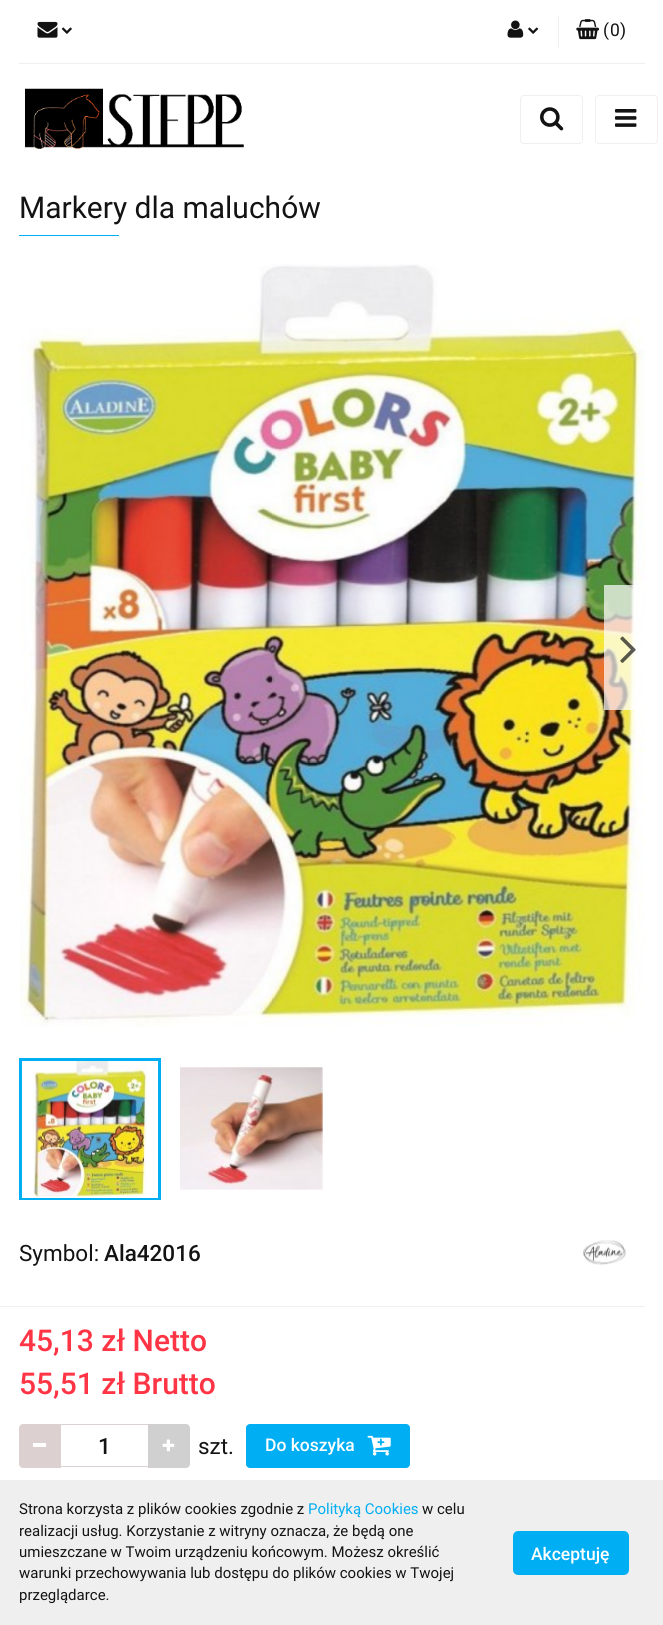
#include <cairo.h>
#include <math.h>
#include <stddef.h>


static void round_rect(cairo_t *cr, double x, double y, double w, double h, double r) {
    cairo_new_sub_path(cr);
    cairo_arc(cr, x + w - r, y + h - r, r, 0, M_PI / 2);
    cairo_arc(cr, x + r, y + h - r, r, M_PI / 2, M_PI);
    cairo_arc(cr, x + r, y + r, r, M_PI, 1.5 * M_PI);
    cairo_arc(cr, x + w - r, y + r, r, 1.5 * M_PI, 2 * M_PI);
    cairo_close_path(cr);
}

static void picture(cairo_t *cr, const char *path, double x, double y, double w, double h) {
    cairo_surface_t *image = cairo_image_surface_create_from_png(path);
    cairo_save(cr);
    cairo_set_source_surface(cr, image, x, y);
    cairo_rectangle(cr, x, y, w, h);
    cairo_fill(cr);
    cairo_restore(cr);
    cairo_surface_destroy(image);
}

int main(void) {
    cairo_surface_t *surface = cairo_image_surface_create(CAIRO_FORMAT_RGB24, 663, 1625);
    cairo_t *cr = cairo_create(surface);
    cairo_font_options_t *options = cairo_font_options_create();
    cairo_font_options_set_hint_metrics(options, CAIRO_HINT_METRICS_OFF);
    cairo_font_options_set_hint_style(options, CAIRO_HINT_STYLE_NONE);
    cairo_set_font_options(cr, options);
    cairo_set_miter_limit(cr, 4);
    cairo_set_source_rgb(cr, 1, 1, 1);
    cairo_paint(cr);
    cairo_set_source_rgb(cr, 0.937, 0.937, 0.937);
    cairo_rectangle(cr, 19, 63, 626, 1);
    cairo_fill(cr);
    picture(cr, "img1.png", 37, 21, 21, 17);
    picture(cr, "img2.png", 61, 27, 11, 7);
    picture(cr, "img3.png", 507, 20, 17, 18);
    picture(cr, "img4.png", 528, 27, 11, 7);
    cairo_rectangle(cr, 558, 16, 1, 32);
    cairo_fill(cr);
    picture(cr, "img5.png", 576, 19, 24, 21);
    cairo_select_font_face(cr, "Roboto", CAIRO_FONT_SLANT_NORMAL, CAIRO_FONT_WEIGHT_NORMAL);
    cairo_set_font_size(cr, 17.5);
    cairo_set_source_rgb(cr, 0.075, 0.075, 0.075);
    cairo_move_to(cr, 603, 36);
    cairo_show_text(cr, "(");
    cairo_move_to(cr, 610, 36);
    cairo_show_text(cr, "0");
    cairo_move_to(cr, 620, 36);
    cairo_show_text(cr, ")");
    picture(cr, "img6.png", 25, 88, 219, 61);
    round_rect(cr, 520.5, 95.5, 62, 48, 3.5);
    cairo_set_source_rgb(cr, 0.937, 0.937, 0.937);
    cairo_set_line_width(cr, 1);
    cairo_stroke(cr);
    picture(cr, "img7.png", 540, 107, 24, 24);
    round_rect(cr, 595.5, 95.5, 62, 48, 3.5);
    cairo_stroke(cr);
    picture(cr, "img8.png", 615, 109, 22, 18);
    cairo_set_font_size(cr, 30);
    cairo_set_source_rgb(cr, 0.075, 0.075, 0.075);
    cairo_move_to(cr, 19, 218);
    cairo_show_text(cr, "Markery dla maluchów");
    cairo_set_source_rgb(cr, 0, 0.682, 0.953);
    cairo_rectangle(cr, 19, 235, 100, 1);
    cairo_fill(cr);
    picture(cr, "img9.png", 20, 264, 625, 763);
    cairo_set_source_rgba(cr, 1, 1, 1, 0.7);
    cairo_rectangle(cr, 604, 585, 41, 125);
    cairo_fill(cr);
    picture(cr, "img10.png", 620, 636, 16, 27);
    picture(cr, "img11.png", 33, 1057, 114, 141);
    cairo_save(cr);
    cairo_rectangle(cr, 19, 1058, 626, 142);
    cairo_clip(cr);
    cairo_rectangle(cr, 20.5, 1059.5, 139, 140);
    cairo_set_source_rgb(cr, 0, 0.682, 0.953);
    cairo_set_line_width(cr, 3);
    cairo_stroke(cr);
    cairo_restore(cr);
    picture(cr, "img12.png", 180, 1067, 143, 123);
    cairo_set_source_rgb(cr, 0.937, 0.937, 0.937);
    cairo_rectangle(cr, 0, 1306, 645, 1);
    cairo_fill(cr);
    cairo_set_font_size(cr, 22.5);
    cairo_set_source_rgb(cr, 0.075, 0.075, 0.075);
    cairo_move_to(cr, 19, 1261);
    cairo_show_text(cr, "Symbol:");
    cairo_select_font_face(cr, "Roboto Medium", CAIRO_FONT_SLANT_NORMAL, CAIRO_FONT_WEIGHT_NORMAL);
    cairo_move_to(cr, 104, 1261);
    cairo_show_text(cr, "Ala42016");
    picture(cr, "img13.png", 583, 1240, 43, 25);
    cairo_set_font_size(cr, 30);
    cairo_set_source_rgb(cr, 1, 0.208, 0.271);
    cairo_move_to(cr, 19, 1351);
    cairo_show_text(cr, "45,13 zł Netto");
    cairo_move_to(cr, 19, 1394);
    cairo_show_text(cr, "55,51 zł Brutto");
    cairo_set_source_rgb(cr, 0.867, 0.816, 0.816);
    cairo_new_path(cr);
    cairo_move_to(cr, 23, 1424);
    cairo_line_to(cr, 61, 1424);
    cairo_line_to(cr, 61, 1468);
    cairo_line_to(cr, 23, 1468);
    cairo_curve_to(cr, 21, 1468, 19, 1466, 19, 1464);
    cairo_line_to(cr, 19, 1428);
    cairo_curve_to(cr, 19, 1426, 21, 1424, 23, 1424);
    cairo_close_path(cr);
    cairo_fill(cr);
    cairo_rectangle(cr, 61, 1424, 87, 1);
    cairo_fill(cr);
    cairo_set_source_rgb(cr, 1, 1, 1);
    cairo_rectangle(cr, 33, 1443, 13, 4);
    cairo_fill(cr);
    cairo_set_source_rgb(cr, 0.867, 0.816, 0.816);
    cairo_rectangle(cr, 61, 1466, 87, 1);
    cairo_fill(cr);
    cairo_set_source_rgb(cr, 0.816, 0.816, 0.816);
    cairo_new_path(cr);
    cairo_move_to(cr, 148, 1424);
    cairo_line_to(cr, 186, 1424);
    cairo_curve_to(cr, 188, 1424, 190, 1426, 190, 1428);
    cairo_line_to(cr, 190, 1464);
    cairo_curve_to(cr, 190, 1466, 188, 1468, 186, 1468);
    cairo_line_to(cr, 148, 1468);
    cairo_close_path(cr);
    cairo_fill(cr);
    picture(cr, "img14.png", 162, 1439, 13, 13);
    cairo_set_font_size(cr, 22.5);
    cairo_set_source_rgb(cr, 0.075, 0.075, 0.075);
    cairo_move_to(cr, 98, 1454);
    cairo_show_text(cr, "1");
    cairo_select_font_face(cr, "Roboto", CAIRO_FONT_SLANT_NORMAL, CAIRO_FONT_WEIGHT_NORMAL);
    cairo_move_to(cr, 198, 1454);
    cairo_show_text(cr, "szt.");
    cairo_set_source_rgb(cr, 0, 0.682, 0.953);
    round_rect(cr, 246, 1424, 164, 44, 4);
    cairo_fill(cr);
    cairo_select_font_face(cr, "Roboto Medium", CAIRO_FONT_SLANT_NORMAL, CAIRO_FONT_WEIGHT_NORMAL);
    cairo_set_font_size(cr, 17.5);
    cairo_set_source_rgb(cr, 1, 1, 1);
    cairo_move_to(cr, 265, 1451);
    cairo_show_text(cr, "Do koszyka");
    picture(cr, "img15.png", 367, 1435, 24, 21);
    cairo_set_source_rgb(cr, 0.937, 0.937, 0.937);
    cairo_rectangle(cr, 0, 1480, 663, 145);
    cairo_fill(cr);
    cairo_select_font_face(cr, "Roboto", CAIRO_FONT_SLANT_NORMAL, CAIRO_FONT_WEIGHT_NORMAL);
    cairo_set_font_size(cr, 15);
    cairo_set_source_rgb(cr, 0.075, 0.075, 0.075);
    cairo_move_to(cr, 19, 1514);
    cairo_show_text(cr, "Strona korzysta z plików cookies zgodnie z");
    cairo_set_source_rgb(cr, 0, 0.682, 0.953);
    cairo_move_to(cr, 308, 1514);
    cairo_show_text(cr, "Polityką Cookies");
    cairo_set_source_rgb(cr, 0.075, 0.075, 0.075);
    cairo_move_to(cr, 422, 1514);
    cairo_show_text(cr, "w celu");
    cairo_move_to(cr, 19, 1536);
    cairo_show_text(cr, "realizacji usług. Korzystanie z witryny oznacza, że będą one");
    cairo_move_to(cr, 19, 1557);
    cairo_show_text(cr, "umieszczane w Twoim urządzeniu końcowym. Możesz określić");
    cairo_move_to(cr, 19, 1578);
    cairo_show_text(cr, "warunki przechowywania lub dostępu do plików cookies w Twojej");
    cairo_move_to(cr, 19, 1600);
    cairo_show_text(cr, "przeglądarce.");
    cairo_set_source_rgb(cr, 0, 0.682, 0.953);
    round_rect(cr, 515, 1533, 112, 40, 3);
    cairo_fill_preserve(cr);
    cairo_set_line_width(cr, 4);
    cairo_stroke(cr);
    cairo_select_font_face(cr, "Roboto Medium", CAIRO_FONT_SLANT_NORMAL, CAIRO_FONT_WEIGHT_NORMAL);
    cairo_set_font_size(cr, 17.5);
    cairo_set_source_rgb(cr, 1, 1, 1);
    cairo_move_to(cr, 531, 1560);
    cairo_show_text(cr, "Akceptuję");
    cairo_surface_write_to_png(surface, "page.png");
    cairo_font_options_destroy(options);
    cairo_destroy(cr);
    cairo_surface_destroy(surface);
    return 0;
}
